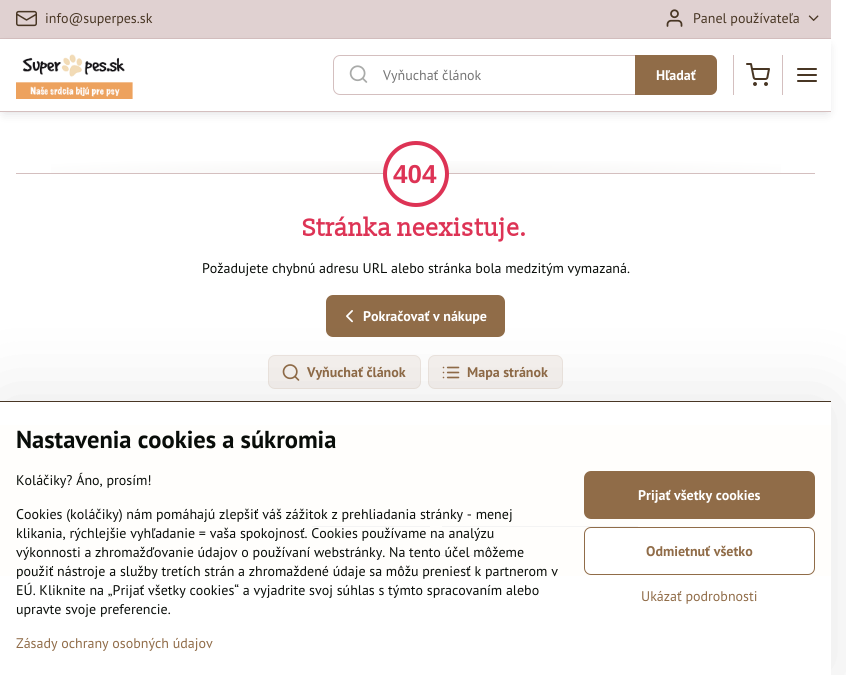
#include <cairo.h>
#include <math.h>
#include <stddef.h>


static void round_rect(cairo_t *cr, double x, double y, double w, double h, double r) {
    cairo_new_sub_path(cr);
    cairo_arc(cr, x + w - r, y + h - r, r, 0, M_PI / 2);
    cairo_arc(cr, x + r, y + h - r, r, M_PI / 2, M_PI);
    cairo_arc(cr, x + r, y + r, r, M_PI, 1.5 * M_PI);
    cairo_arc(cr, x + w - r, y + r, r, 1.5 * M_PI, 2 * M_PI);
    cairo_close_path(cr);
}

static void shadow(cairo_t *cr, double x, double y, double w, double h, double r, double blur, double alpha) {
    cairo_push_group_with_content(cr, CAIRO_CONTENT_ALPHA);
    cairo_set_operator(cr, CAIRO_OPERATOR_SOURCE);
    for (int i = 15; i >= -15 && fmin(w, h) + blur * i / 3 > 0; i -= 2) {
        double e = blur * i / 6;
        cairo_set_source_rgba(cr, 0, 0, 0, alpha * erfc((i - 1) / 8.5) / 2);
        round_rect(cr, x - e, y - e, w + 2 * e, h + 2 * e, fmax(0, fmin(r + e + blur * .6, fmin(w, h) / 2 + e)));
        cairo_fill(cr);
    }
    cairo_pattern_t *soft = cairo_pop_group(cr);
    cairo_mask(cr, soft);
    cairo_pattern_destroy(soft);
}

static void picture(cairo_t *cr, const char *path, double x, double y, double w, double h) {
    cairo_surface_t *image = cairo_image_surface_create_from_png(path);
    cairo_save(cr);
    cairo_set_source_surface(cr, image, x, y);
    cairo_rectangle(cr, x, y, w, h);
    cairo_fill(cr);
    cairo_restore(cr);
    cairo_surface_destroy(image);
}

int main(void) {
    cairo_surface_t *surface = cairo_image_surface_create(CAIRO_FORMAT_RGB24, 846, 675);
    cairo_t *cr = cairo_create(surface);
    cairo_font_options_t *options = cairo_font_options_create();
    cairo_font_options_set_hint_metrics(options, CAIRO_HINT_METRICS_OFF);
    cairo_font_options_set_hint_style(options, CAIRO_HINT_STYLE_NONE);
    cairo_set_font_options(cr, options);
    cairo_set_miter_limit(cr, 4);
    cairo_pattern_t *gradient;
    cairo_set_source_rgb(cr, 1, 1, 1);
    cairo_paint(cr);
    cairo_set_source_rgb(cr, 0.878, 0.82, 0.82);
    cairo_rectangle(cr, 0, 0, 831, 38);
    cairo_fill(cr);
    cairo_set_source_rgb(cr, 0.831, 0.749, 0.749);
    cairo_rectangle(cr, 0, 38, 831, 1);
    cairo_fill(cr);
    picture(cr, "img1.png", 16, 10, 21, 17);
    cairo_select_font_face(cr, "PT Sans", CAIRO_FONT_SLANT_NORMAL, CAIRO_FONT_WEIGHT_NORMAL);
    cairo_set_font_size(cr, 14);
    cairo_set_source_rgb(cr, 0.282, 0.212, 0.141);
    cairo_move_to(cr, 45, 23);
    cairo_show_text(cr, "info@superpes.sk");
    picture(cr, "img2.png", 666, 9, 17, 18);
    cairo_move_to(cr, 693, 23);
    cairo_show_text(cr, "Panel používateľa");
    picture(cr, "img3.png", 808, 15, 11, 6);
    cairo_save(cr);
    cairo_set_fill_rule(cr, CAIRO_FILL_RULE_EVEN_ODD);
    cairo_new_path(cr);
    cairo_move_to(cr, 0, 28);
    cairo_line_to(cr, 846, 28);
    cairo_line_to(cr, 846, 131);
    cairo_line_to(cr, 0, 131);
    cairo_close_path(cr);
    cairo_move_to(cr, 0, 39);
    cairo_line_to(cr, 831, 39);
    cairo_line_to(cr, 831, 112);
    cairo_line_to(cr, 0, 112);
    cairo_close_path(cr);
    cairo_clip(cr);
    cairo_set_source_rgb(cr, 0, 0, 0.078);
    shadow(cr, 4, 47, 823, 65, 0, 6, 0.15);
    cairo_restore(cr);
    cairo_set_source_rgb(cr, 0.831, 0.749, 0.749);
    cairo_rectangle(cr, 0, 111, 831, 1);
    cairo_fill(cr);
    picture(cr, "img4.png", 16, 54, 117, 45);
    round_rect(cr, 333.5, 55.5, 383, 39, 6.5);
    cairo_set_line_width(cr, 1);
    cairo_stroke(cr);
    picture(cr, "img5.png", 349, 65, 19, 18);
    cairo_set_source_rgb(cr, 0.459, 0.459, 0.459);
    cairo_move_to(cr, 383, 80);
    cairo_show_text(cr, "Vyňuchať článok");
    cairo_set_source_rgb(cr, 0.565, 0.424, 0.282);
    cairo_new_path(cr);
    cairo_move_to(cr, 635, 55);
    cairo_line_to(cr, 710, 55);
    cairo_curve_to(cr, 714, 55, 717, 58, 717, 62);
    cairo_line_to(cr, 717, 88);
    cairo_curve_to(cr, 717, 92, 714, 95, 710, 95);
    cairo_line_to(cr, 635, 95);
    cairo_close_path(cr);
    cairo_fill(cr);
    cairo_select_font_face(cr, "PT Sans", CAIRO_FONT_SLANT_NORMAL, CAIRO_FONT_WEIGHT_BOLD);
    cairo_set_source_rgb(cr, 1, 1, 1);
    cairo_move_to(cr, 656, 80);
    cairo_show_text(cr, "Hľadať");
    cairo_set_source_rgb(cr, 0.831, 0.749, 0.749);
    cairo_rectangle(cr, 733, 55, 1, 40);
    cairo_fill(cr);
    picture(cr, "img6.png", 746, 63, 24, 23);
    cairo_rectangle(cr, 782, 55, 1, 40);
    cairo_fill(cr);
    picture(cr, "img7.png", 797, 68, 20, 14);
    cairo_rectangle(cr, 16, 173, 799, 1);
    cairo_fill(cr);
    gradient = cairo_pattern_create_radial(0, 0, 0, 0, 0, 1);
    cairo_pattern_set_matrix(gradient, &(cairo_matrix_t){1.0 / 678, 0, 0, 1.0 / 23, -1.0 * 416 / 678, -1.0 * 173 / 23});
    cairo_pattern_add_color_stop_rgba(gradient, 0, 0.965, 0.961, 0.957, 1);
    cairo_pattern_add_color_stop_rgba(gradient, 0.7, 1, 1, 1, 1);
    cairo_set_source(cr, gradient);
    cairo_pattern_destroy(gradient);
    cairo_rectangle(cr, 51, 161, 730, 12);
    cairo_fill(cr);
    cairo_set_source_rgb(cr, 1, 1, 1);
    cairo_arc(cr, 416, 174, 31, 0, 2 * M_PI);
    cairo_fill_preserve(cr);
    cairo_set_source_rgb(cr, 0.867, 0.2, 0.333);
    cairo_set_line_width(cr, 4);
    cairo_stroke(cr);
    cairo_select_font_face(cr, "Liberation Sans", CAIRO_FONT_SLANT_NORMAL, CAIRO_FONT_WEIGHT_BOLD);
    cairo_set_font_size(cr, 26);
    cairo_move_to(cr, 393, 183);
    cairo_show_text(cr, "404");
    cairo_select_font_face(cr, "Slabo 13px", CAIRO_FONT_SLANT_NORMAL, CAIRO_FONT_WEIGHT_BOLD);
    cairo_set_font_size(cr, 24.5);
    cairo_move_to(cr, 303, 236);
    cairo_show_text(cr, "Stránka neexistuje.");
    cairo_select_font_face(cr, "PT Sans", CAIRO_FONT_SLANT_NORMAL, CAIRO_FONT_WEIGHT_NORMAL);
    cairo_set_font_size(cr, 14);
    cairo_set_source_rgb(cr, 0.039, 0.051, 0.039);
    cairo_move_to(cr, 202, 273);
    cairo_show_text(cr, "Požadujete chybnú adresu URL alebo stránka bola medzitým vymazaná.");
    cairo_set_source_rgb(cr, 0.565, 0.424, 0.282);
    round_rect(cr, 326, 295, 179, 42, 7);
    cairo_fill(cr);
    picture(cr, "img8.png", 346, 310, 7, 13);
    cairo_select_font_face(cr, "PT Sans", CAIRO_FONT_SLANT_NORMAL, CAIRO_FONT_WEIGHT_BOLD);
    cairo_set_source_rgb(cr, 1, 1, 1);
    cairo_move_to(cr, 363, 321);
    cairo_show_text(cr, "Pokračovať v nákupe");
    cairo_set_source_rgb(cr, 0.961, 0.949, 0.937);
    round_rect(cr, 268, 355, 153, 34, 7);
    cairo_fill(cr);
    round_rect(cr, 268.5, 355.5, 152, 33, 6.5);
    cairo_set_source_rgba(cr, 0.565, 0.424, 0.282, 0.09);
    cairo_set_line_width(cr, 1);
    cairo_stroke(cr);
    picture(cr, "img9.png", 282, 364, 18, 17);
    cairo_set_source_rgb(cr, 0.565, 0.424, 0.282);
    cairo_move_to(cr, 307, 377);
    cairo_show_text(cr, "Vyňuchať článok");
    cairo_set_source_rgb(cr, 0.961, 0.949, 0.937);
    round_rect(cr, 428, 355, 135, 34, 7);
    cairo_fill(cr);
    round_rect(cr, 428.5, 355.5, 134, 33, 6.5);
    cairo_set_source_rgba(cr, 0.565, 0.424, 0.282, 0.09);
    cairo_stroke(cr);
    picture(cr, "img10.png", 442, 366, 18, 13);
    cairo_set_source_rgb(cr, 0.565, 0.424, 0.282);
    cairo_move_to(cr, 467, 377);
    cairo_show_text(cr, "Mapa stránok");
    cairo_set_source_rgb(cr, 1, 0.996, 0.988);
    cairo_rectangle(cr, 0, 425, 831, 151);
    cairo_fill(cr);
    cairo_set_source_rgb(cr, 0.957, 0.957, 0.957);
    cairo_rectangle(cr, 312, 526, 118, 1);
    cairo_fill(cr);
    cairo_rectangle(cr, 442, 526, 196, 1);
    cairo_fill(cr);
    cairo_rectangle(cr, 440, 555, 77, 1);
    cairo_fill(cr);
    cairo_save(cr);
    cairo_set_fill_rule(cr, CAIRO_FILL_RULE_EVEN_ODD);
    cairo_new_path(cr);
    cairo_move_to(cr, 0, 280);
    cairo_line_to(cr, 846, 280);
    cairo_line_to(cr, 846, 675);
    cairo_line_to(cr, 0, 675);
    cairo_close_path(cr);
    cairo_move_to(cr, 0, 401);
    cairo_line_to(cr, 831, 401);
    cairo_line_to(cr, 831, 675);
    cairo_line_to(cr, 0, 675);
    cairo_close_path(cr);
    cairo_clip(cr);
    cairo_set_source_rgb(cr, 0, 0, 0);
    shadow(cr, 0, 401, 831, 274, 0, 40, 0.1);
    cairo_restore(cr);
    cairo_set_source_rgb(cr, 0.282, 0.212, 0.141);
    cairo_rectangle(cr, 0, 401, 831, 1);
    cairo_fill(cr);
    cairo_set_font_size(cr, 24.5);
    cairo_set_source_rgb(cr, 0.039, 0.051, 0.039);
    cairo_move_to(cr, 16, 448);
    cairo_show_text(cr, "Nastavenia cookies a súkromia");
    cairo_select_font_face(cr, "PT Sans", CAIRO_FONT_SLANT_NORMAL, CAIRO_FONT_WEIGHT_NORMAL);
    cairo_set_font_size(cr, 14);
    cairo_move_to(cr, 16, 485);
    cairo_show_text(cr, "Koláčiky? Áno, prosím!");
    cairo_move_to(cr, 16, 519);
    cairo_show_text(cr, "Cookies (koláčiky) nám pomáhajú zlepšiť váš zážitok z prehliadania stránky - menej");
    cairo_move_to(cr, 16, 538);
    cairo_show_text(cr, "klikania, rýchlejšie vyhľadanie = vaša spokojnosť. Cookies používame na analýzu");
    cairo_move_to(cr, 16, 557);
    cairo_show_text(cr, "výkonnosti a zhromažďovanie údajov o používaní webstránky. Na tento účel môžeme");
    cairo_move_to(cr, 16, 576);
    cairo_show_text(cr, "použiť nástroje a služby tretích strán a zhromaždené údaje sa môžu preniesť k partnerom v");
    cairo_move_to(cr, 16, 595);
    cairo_show_text(cr, "EÚ. Kliknite na „Prijať všetky cookies“ a vyjadrite svoj súhlas s týmto spracovaním alebo");
    cairo_move_to(cr, 16, 614);
    cairo_show_text(cr, "upravte svoje preferencie.");
    cairo_set_source_rgb(cr, 0.565, 0.424, 0.282);
    cairo_move_to(cr, 16, 648);
    cairo_show_text(cr, "Zásady ochrany osobných údajov");
    round_rect(cr, 584, 471, 231, 48, 7);
    cairo_fill(cr);
    cairo_select_font_face(cr, "PT Sans", CAIRO_FONT_SLANT_NORMAL, CAIRO_FONT_WEIGHT_BOLD);
    cairo_set_source_rgb(cr, 1, 1, 1);
    cairo_move_to(cr, 638, 500);
    cairo_show_text(cr, "Prijať všetky cookies");
    round_rect(cr, 584.5, 527.5, 230, 47, 6.5);
    cairo_fill_preserve(cr);
    cairo_set_source_rgb(cr, 0.565, 0.424, 0.282);
    cairo_stroke(cr);
    cairo_move_to(cr, 646, 556);
    cairo_show_text(cr, "Odmietnuť všetko");
    cairo_select_font_face(cr, "PT Sans", CAIRO_FONT_SLANT_NORMAL, CAIRO_FONT_WEIGHT_NORMAL);
    cairo_move_to(cr, 641, 601);
    cairo_show_text(cr, "Ukázať podrobnosti");
    cairo_surface_write_to_png(surface, "page.png");
    cairo_font_options_destroy(options);
    cairo_destroy(cr);
    cairo_surface_destroy(surface);
    return 0;
}
